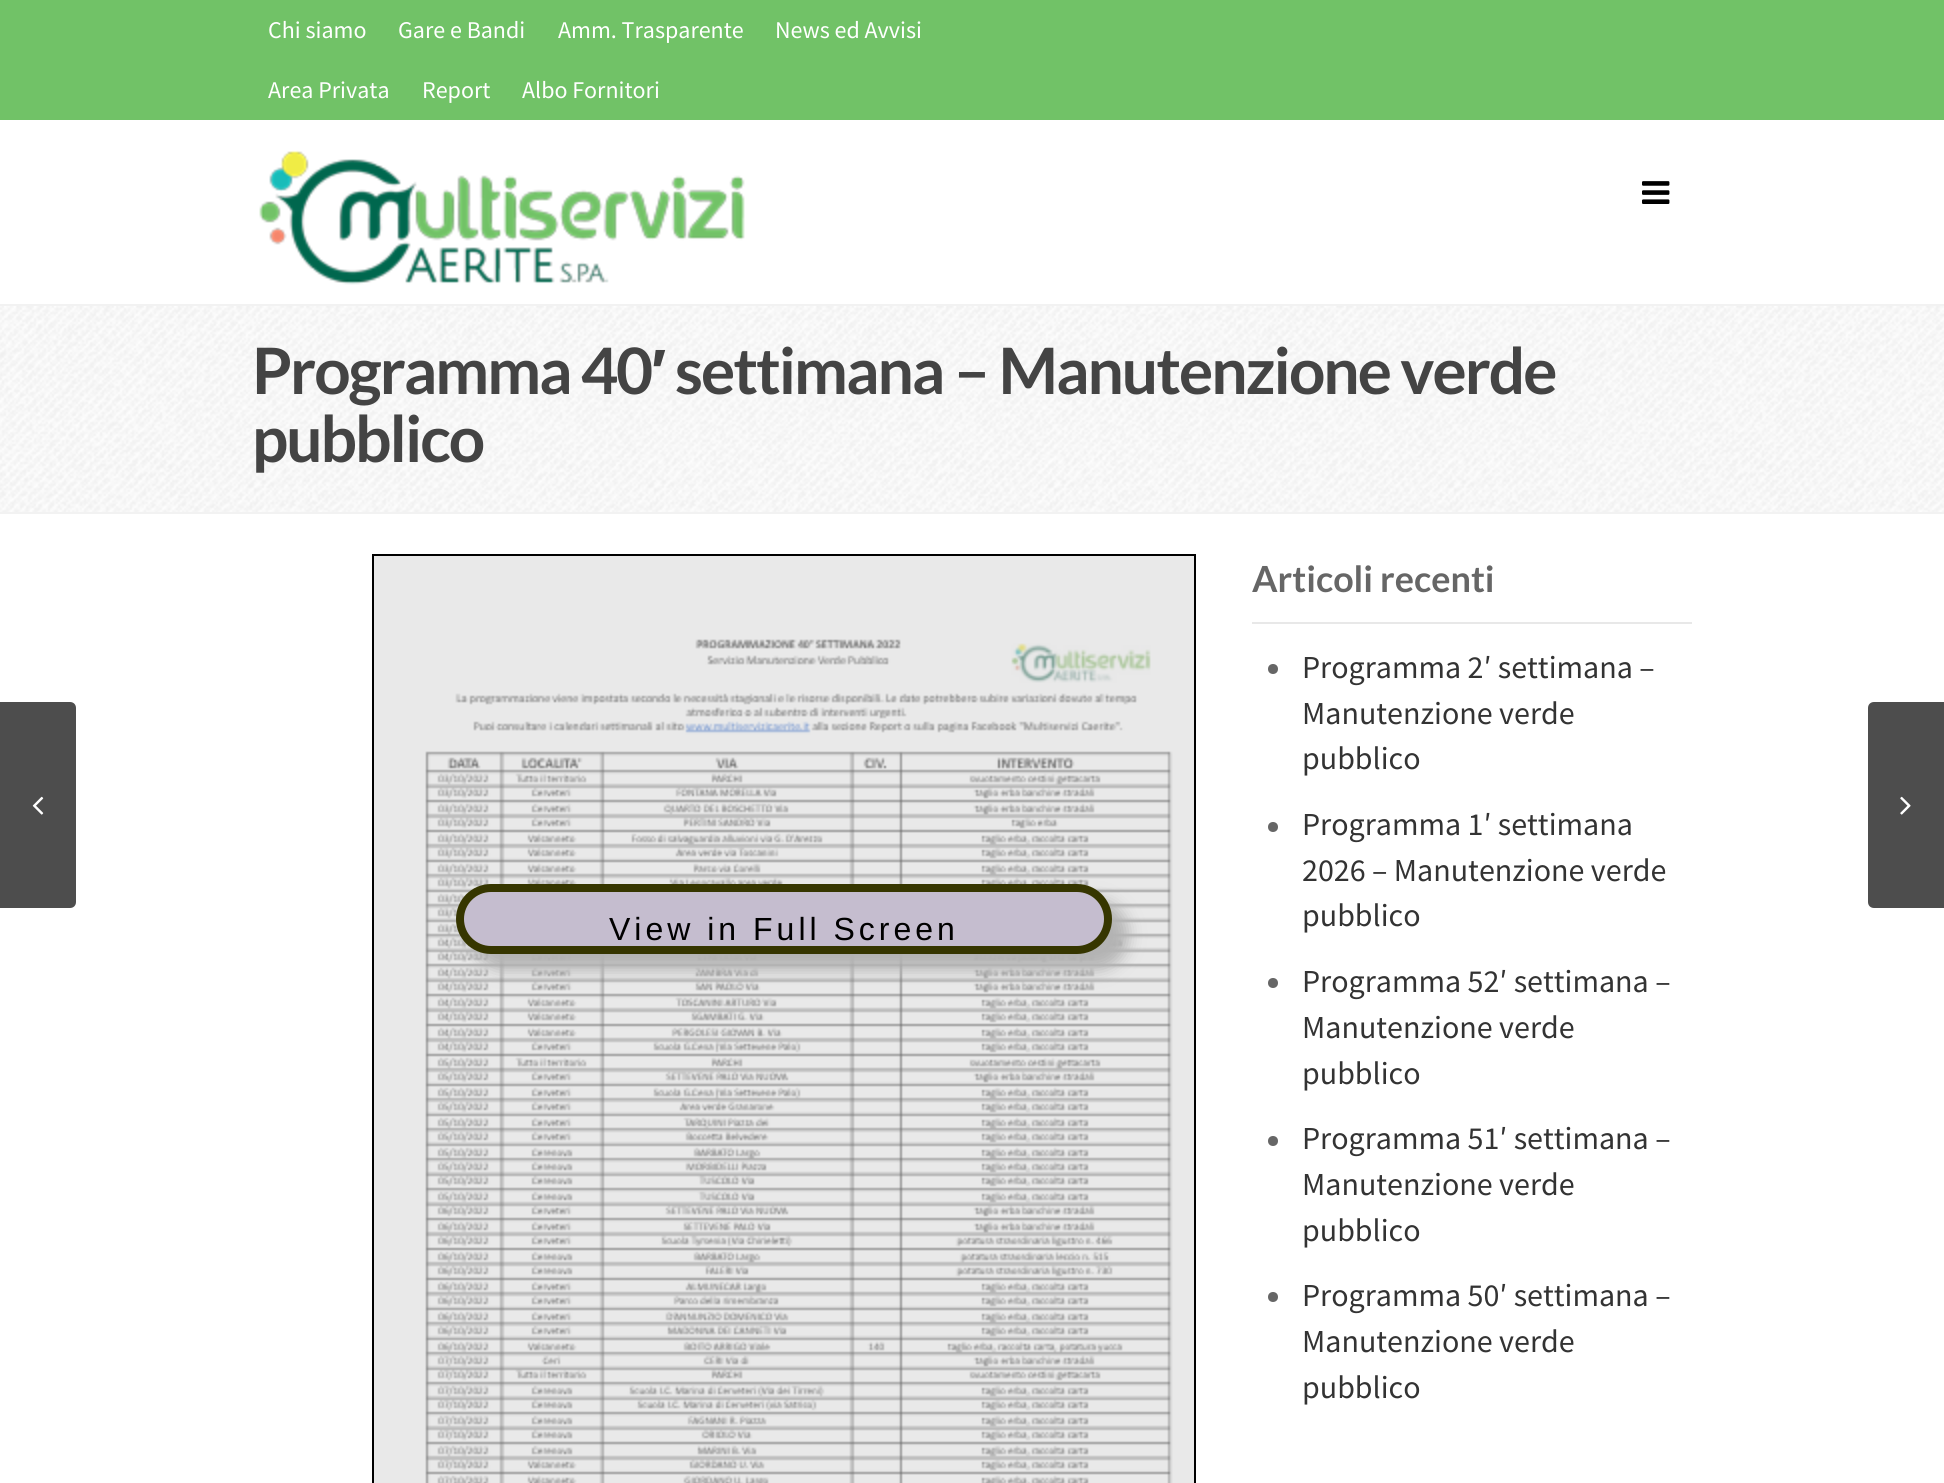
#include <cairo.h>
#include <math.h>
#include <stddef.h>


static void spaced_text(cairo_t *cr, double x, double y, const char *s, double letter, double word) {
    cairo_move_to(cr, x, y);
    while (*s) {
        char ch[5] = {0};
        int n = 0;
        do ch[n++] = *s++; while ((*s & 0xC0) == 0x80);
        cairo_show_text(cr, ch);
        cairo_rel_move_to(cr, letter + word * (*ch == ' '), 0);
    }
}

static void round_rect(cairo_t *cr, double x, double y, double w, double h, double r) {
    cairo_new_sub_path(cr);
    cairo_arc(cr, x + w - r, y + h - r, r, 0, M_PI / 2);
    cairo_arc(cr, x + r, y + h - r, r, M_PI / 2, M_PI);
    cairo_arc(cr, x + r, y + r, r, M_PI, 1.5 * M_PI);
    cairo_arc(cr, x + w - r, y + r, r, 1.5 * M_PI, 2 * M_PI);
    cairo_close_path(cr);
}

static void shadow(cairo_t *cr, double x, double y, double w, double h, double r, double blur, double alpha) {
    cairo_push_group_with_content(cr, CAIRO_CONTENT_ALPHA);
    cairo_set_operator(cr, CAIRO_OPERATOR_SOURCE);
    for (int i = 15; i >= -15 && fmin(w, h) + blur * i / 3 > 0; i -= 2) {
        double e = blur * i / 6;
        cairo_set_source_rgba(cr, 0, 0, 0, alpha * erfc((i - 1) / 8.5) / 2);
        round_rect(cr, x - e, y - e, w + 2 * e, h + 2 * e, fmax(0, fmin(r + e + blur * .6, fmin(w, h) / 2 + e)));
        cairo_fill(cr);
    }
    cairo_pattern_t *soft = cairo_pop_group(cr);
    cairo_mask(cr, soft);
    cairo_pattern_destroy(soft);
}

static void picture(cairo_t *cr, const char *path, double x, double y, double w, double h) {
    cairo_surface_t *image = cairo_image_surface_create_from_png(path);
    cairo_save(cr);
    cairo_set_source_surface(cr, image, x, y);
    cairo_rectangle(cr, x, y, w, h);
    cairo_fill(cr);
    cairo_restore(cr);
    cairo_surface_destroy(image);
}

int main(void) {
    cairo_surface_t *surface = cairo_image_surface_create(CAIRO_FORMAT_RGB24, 1944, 1483);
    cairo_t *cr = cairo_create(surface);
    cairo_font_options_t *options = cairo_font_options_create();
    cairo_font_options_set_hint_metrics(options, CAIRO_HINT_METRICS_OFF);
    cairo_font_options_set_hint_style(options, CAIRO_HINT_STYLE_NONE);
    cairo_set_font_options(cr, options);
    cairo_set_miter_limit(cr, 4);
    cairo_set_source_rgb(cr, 1, 1, 1);
    cairo_paint(cr);
    cairo_set_source_rgb(cr, 0.443, 0.761, 0.404);
    cairo_rectangle(cr, 0, 0, 1944, 120);
    cairo_fill(cr);
    cairo_select_font_face(cr, "Source Sans Pro", CAIRO_FONT_SLANT_NORMAL, CAIRO_FONT_WEIGHT_NORMAL);
    cairo_set_font_size(cr, 24);
    cairo_set_source_rgb(cr, 1, 1, 1);
    cairo_move_to(cr, 268, 38);
    cairo_show_text(cr, "Chi siamo");
    cairo_move_to(cr, 398, 38);
    cairo_show_text(cr, "Gare e Bandi");
    cairo_move_to(cr, 558, 38);
    cairo_show_text(cr, "Amm. Trasparente");
    cairo_move_to(cr, 775, 38);
    cairo_show_text(cr, "News ed Avvisi");
    cairo_move_to(cr, 268, 98);
    cairo_show_text(cr, "Area Privata");
    cairo_move_to(cr, 422, 98);
    cairo_show_text(cr, "Report");
    cairo_move_to(cr, 522, 98);
    cairo_show_text(cr, "Albo Fornitori");
    cairo_set_source_rgb(cr, 0.949, 0.949, 0.949);
    cairo_rectangle(cr, 0, 304, 1944, 2);
    cairo_fill(cr);
    picture(cr, "img1.png", 259, 150, 486, 135);
    picture(cr, "img2.png", 1642, 181, 28, 23);
    picture(cr, "img3.png", 0, 306, 1944, 206);
    cairo_rectangle(cr, 0, 512, 1944, 2);
    cairo_fill(cr);
    cairo_select_font_face(cr, "Lato", CAIRO_FONT_SLANT_NORMAL, CAIRO_FONT_WEIGHT_BOLD);
    cairo_set_font_size(cr, 64);
    cairo_set_source_rgb(cr, 0.267, 0.267, 0.267);
    spaced_text(cr, 252, 394, "Programma 40", -2, 0);
    cairo_select_font_face(cr, "Liberation Sans", CAIRO_FONT_SLANT_NORMAL, CAIRO_FONT_WEIGHT_BOLD);
    spaced_text(cr, 651, 394, "′", -2, 0);
    cairo_select_font_face(cr, "Lato", CAIRO_FONT_SLANT_NORMAL, CAIRO_FONT_WEIGHT_BOLD);
    spaced_text(cr, 675, 394, "settimana – Manutenzione verde", -2, 0);
    spaced_text(cr, 252, 462, "pubblico", -2, 0);
    cairo_set_source_rgb(cr, 0.302, 0.302, 0.302);
    cairo_new_path(cr);
    cairo_move_to(cr, 0, 702);
    cairo_line_to(cr, 70, 702);
    cairo_curve_to(cr, 73.5, 702, 76, 704.5, 76, 708);
    cairo_line_to(cr, 76, 902);
    cairo_curve_to(cr, 76, 905.5, 73.5, 908, 70, 908);
    cairo_line_to(cr, 0, 908);
    cairo_close_path(cr);
    cairo_fill(cr);
    picture(cr, "img4.png", 32, 796, 12, 19);
    cairo_new_path(cr);
    cairo_move_to(cr, 1874, 702);
    cairo_line_to(cr, 1944, 702);
    cairo_line_to(cr, 1944, 908);
    cairo_line_to(cr, 1874, 908);
    cairo_curve_to(cr, 1870.5, 908, 1868, 905.5, 1868, 902);
    cairo_line_to(cr, 1868, 708);
    cairo_curve_to(cr, 1868, 704.5, 1870.5, 702, 1874, 702);
    cairo_close_path(cr);
    cairo_fill(cr);
    picture(cr, "img5.png", 1900, 796, 11, 19);
    cairo_rectangle(cr, 373, 555, 822, 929);
    cairo_set_source_rgb(cr, 0, 0, 0);
    cairo_stroke(cr);
    cairo_set_source_rgb(cr, 0.914, 0.914, 0.914);
    cairo_rectangle(cr, 374, 556, 820, 927);
    cairo_fill(cr);
    picture(cr, "img6.png", 425, 639, 748, 844);
    cairo_set_source_rgb(cr, 0.702, 0.702, 0.702);
    shadow(cr, 472, 900, 656, 70, 35, 8, 1);
    cairo_set_source_rgb(cr, 0.773, 0.741, 0.812);
    round_rect(cr, 460, 888, 648, 62, 31);
    cairo_fill_preserve(cr);
    cairo_set_source_rgb(cr, 0.212, 0.212, 0);
    cairo_set_line_width(cr, 8);
    cairo_stroke(cr);
    cairo_select_font_face(cr, "Liberation Sans", CAIRO_FONT_SLANT_NORMAL, CAIRO_FONT_WEIGHT_NORMAL);
    cairo_set_font_size(cr, 32);
    cairo_set_source_rgb(cr, 0, 0, 0);
    spaced_text(cr, 609, 940, "View in Full Screen", 4, 0);
    cairo_select_font_face(cr, "Lato", CAIRO_FONT_SLANT_NORMAL, CAIRO_FONT_WEIGHT_BOLD);
    cairo_set_font_size(cr, 36);
    cairo_set_source_rgb(cr, 0.4, 0.4, 0.4);
    cairo_move_to(cr, 1252, 592);
    cairo_show_text(cr, "Articoli recenti");
    cairo_set_source_rgb(cr, 0.91, 0.91, 0.91);
    cairo_rectangle(cr, 1252, 622, 440, 2);
    cairo_fill(cr);
    cairo_set_source_rgb(cr, 0.4, 0.4, 0.4);
    cairo_arc(cr, 1273, 669, 5, 0, 2 * M_PI);
    cairo_fill(cr);
    cairo_select_font_face(cr, "Source Sans Pro", CAIRO_FONT_SLANT_NORMAL, CAIRO_FONT_WEIGHT_NORMAL);
    cairo_set_font_size(cr, 32);
    cairo_set_source_rgb(cr, 0.2, 0.2, 0.2);
    cairo_move_to(cr, 1302, 678);
    cairo_show_text(cr, "Programma 2′ settimana –");
    cairo_move_to(cr, 1302, 724);
    cairo_show_text(cr, "Manutenzione verde");
    cairo_move_to(cr, 1302, 769);
    cairo_show_text(cr, "pubblico");
    cairo_set_source_rgb(cr, 0.4, 0.4, 0.4);
    cairo_new_path(cr);
    cairo_arc(cr, 1273, 827, 5, 0, 2 * M_PI);
    cairo_fill(cr);
    cairo_set_source_rgb(cr, 0.2, 0.2, 0.2);
    cairo_move_to(cr, 1302, 835);
    cairo_show_text(cr, "Programma 1′ settimana");
    cairo_move_to(cr, 1302, 881);
    cairo_show_text(cr, "2026 – Manutenzione verde");
    cairo_move_to(cr, 1302, 926);
    cairo_show_text(cr, "pubblico");
    cairo_set_source_rgb(cr, 0.4, 0.4, 0.4);
    cairo_new_path(cr);
    cairo_arc(cr, 1273, 983, 5, 0, 2 * M_PI);
    cairo_fill(cr);
    cairo_set_source_rgb(cr, 0.2, 0.2, 0.2);
    cairo_move_to(cr, 1302, 992);
    cairo_show_text(cr, "Programma 52′ settimana –");
    cairo_move_to(cr, 1302, 1038);
    cairo_show_text(cr, "Manutenzione verde");
    cairo_move_to(cr, 1302, 1084);
    cairo_show_text(cr, "pubblico");
    cairo_set_source_rgb(cr, 0.4, 0.4, 0.4);
    cairo_new_path(cr);
    cairo_arc(cr, 1273, 1141, 5, 0, 2 * M_PI);
    cairo_fill(cr);
    cairo_set_source_rgb(cr, 0.2, 0.2, 0.2);
    cairo_move_to(cr, 1302, 1149);
    cairo_show_text(cr, "Programma 51′ settimana –");
    cairo_move_to(cr, 1302, 1195);
    cairo_show_text(cr, "Manutenzione verde");
    cairo_move_to(cr, 1302, 1241);
    cairo_show_text(cr, "pubblico");
    cairo_set_source_rgb(cr, 0.4, 0.4, 0.4);
    cairo_new_path(cr);
    cairo_arc(cr, 1273, 1297, 5, 0, 2 * M_PI);
    cairo_fill(cr);
    cairo_set_source_rgb(cr, 0.2, 0.2, 0.2);
    cairo_move_to(cr, 1302, 1306);
    cairo_show_text(cr, "Programma 50′ settimana –");
    cairo_move_to(cr, 1302, 1352);
    cairo_show_text(cr, "Manutenzione verde");
    cairo_move_to(cr, 1302, 1398);
    cairo_show_text(cr, "pubblico");
    cairo_surface_write_to_png(surface, "page.png");
    cairo_font_options_destroy(options);
    cairo_destroy(cr);
    cairo_surface_destroy(surface);
    return 0;
}
